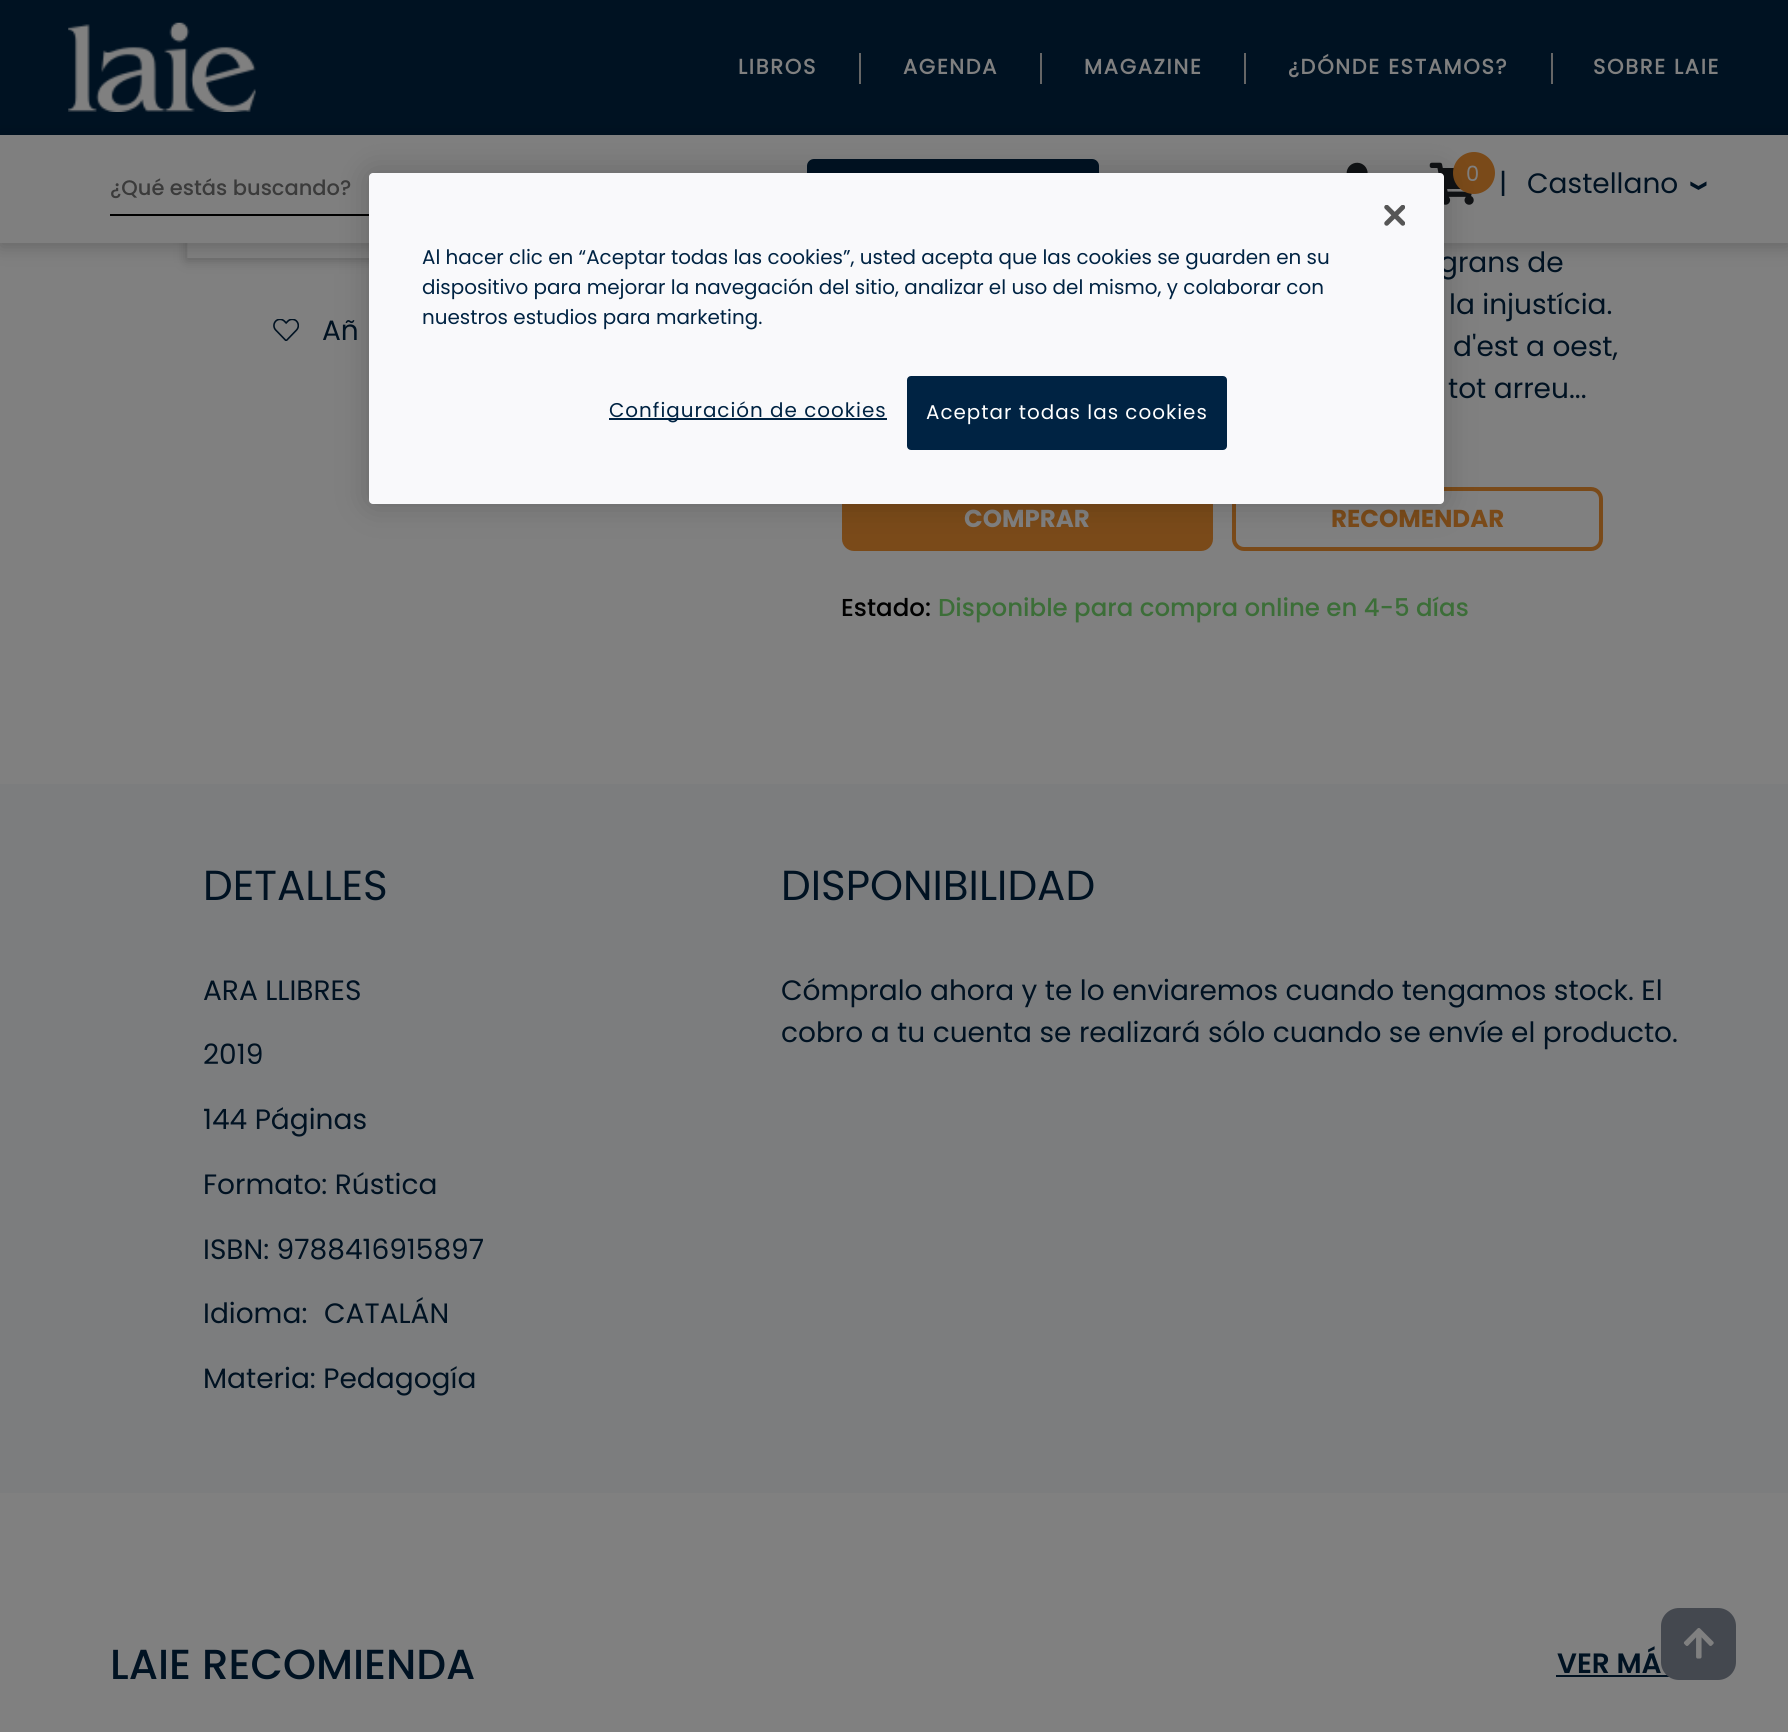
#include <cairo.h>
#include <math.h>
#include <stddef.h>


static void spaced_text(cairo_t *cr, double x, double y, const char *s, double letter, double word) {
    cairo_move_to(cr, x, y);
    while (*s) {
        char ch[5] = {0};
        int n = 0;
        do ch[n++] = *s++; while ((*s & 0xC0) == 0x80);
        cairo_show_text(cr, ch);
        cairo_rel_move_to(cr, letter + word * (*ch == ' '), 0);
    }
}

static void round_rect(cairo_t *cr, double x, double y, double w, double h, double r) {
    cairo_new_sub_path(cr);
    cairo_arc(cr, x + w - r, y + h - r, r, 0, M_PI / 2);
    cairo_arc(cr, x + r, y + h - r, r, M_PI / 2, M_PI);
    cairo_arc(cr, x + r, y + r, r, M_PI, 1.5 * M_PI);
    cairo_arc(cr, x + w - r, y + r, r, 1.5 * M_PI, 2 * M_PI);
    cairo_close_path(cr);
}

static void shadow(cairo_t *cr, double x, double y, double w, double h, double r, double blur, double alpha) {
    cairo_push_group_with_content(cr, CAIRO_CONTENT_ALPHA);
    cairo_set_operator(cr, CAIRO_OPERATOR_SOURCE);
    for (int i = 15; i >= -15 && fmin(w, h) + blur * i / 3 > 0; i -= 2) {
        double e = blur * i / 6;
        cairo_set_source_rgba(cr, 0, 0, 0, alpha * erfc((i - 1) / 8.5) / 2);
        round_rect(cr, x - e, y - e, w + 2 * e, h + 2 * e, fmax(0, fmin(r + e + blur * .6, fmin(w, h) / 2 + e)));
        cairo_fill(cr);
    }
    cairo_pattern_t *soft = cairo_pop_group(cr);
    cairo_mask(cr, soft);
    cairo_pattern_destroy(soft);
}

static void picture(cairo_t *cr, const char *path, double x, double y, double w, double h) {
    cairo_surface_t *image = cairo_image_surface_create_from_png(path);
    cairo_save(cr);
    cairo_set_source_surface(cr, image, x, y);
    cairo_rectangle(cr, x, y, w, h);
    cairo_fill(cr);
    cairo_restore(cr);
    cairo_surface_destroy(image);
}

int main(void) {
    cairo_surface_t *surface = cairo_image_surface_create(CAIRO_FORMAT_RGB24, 1788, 1732);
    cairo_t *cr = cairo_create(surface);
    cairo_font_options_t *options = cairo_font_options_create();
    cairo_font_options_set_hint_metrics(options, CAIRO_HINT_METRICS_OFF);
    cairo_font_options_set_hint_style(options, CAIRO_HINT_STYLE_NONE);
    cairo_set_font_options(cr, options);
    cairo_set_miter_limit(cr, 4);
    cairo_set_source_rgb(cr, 0.502, 0.502, 0.502);
    cairo_paint(cr);
    cairo_set_source_rgb(cr, 0, 0, 0);
    shadow(cr, 186, -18, 472, 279, 0, 6, 0.2);
    cairo_set_source_rgb(cr, 0, 0.071, 0.133);
    cairo_rectangle(cr, 0, 0, 1788, 135);
    cairo_fill(cr);
    picture(cr, "img4.png", 187, 243, 182, 15);
    cairo_set_source_rgb(cr, 0, 0, 0);
    shadow(cr, 0, 138, 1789, 109, 0, 9, 0.2);
    picture(cr, "img1.png", 68, 22, 188, 90);
    cairo_select_font_face(cr, "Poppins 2", CAIRO_FONT_SLANT_NORMAL, CAIRO_FONT_WEIGHT_BOLD);
    cairo_set_font_size(cr, 21);
    cairo_set_source_rgb(cr, 0.502, 0.502, 0.502);
    spaced_text(cr, 738, 74, "LIBROS", 1.7, 0);
    cairo_set_source_rgb(cr, 0.4, 0.4, 0.4);
    cairo_rectangle(cr, 859, 53, 2, 31);
    cairo_fill(cr);
    cairo_set_source_rgb(cr, 0.502, 0.502, 0.502);
    spaced_text(cr, 903, 74, "AGENDA", 1.7, 0);
    cairo_set_source_rgb(cr, 0.4, 0.4, 0.4);
    cairo_rectangle(cr, 1040, 53, 2, 31);
    cairo_fill(cr);
    cairo_set_source_rgb(cr, 0.502, 0.502, 0.502);
    spaced_text(cr, 1084, 74, "MAGAZINE", 1.7, 0);
    cairo_set_source_rgb(cr, 0.4, 0.4, 0.4);
    cairo_rectangle(cr, 1244, 53, 2, 31);
    cairo_fill(cr);
    cairo_set_source_rgb(cr, 0.502, 0.502, 0.502);
    spaced_text(cr, 1288, 74, "¿DÓNDE ESTAMOS?", 1.7, 0);
    cairo_set_source_rgb(cr, 0.4, 0.4, 0.4);
    cairo_rectangle(cr, 1551, 53, 2, 31);
    cairo_fill(cr);
    cairo_set_source_rgb(cr, 0.502, 0.502, 0.502);
    spaced_text(cr, 1593, 74, "SOBRE LAIE", 1.7, 0);
    cairo_set_source_rgb(cr, 0.498, 0.498, 0.498);
    cairo_rectangle(cr, 0, 135, 1788, 108);
    cairo_fill(cr);
    cairo_set_source_rgb(cr, 0, 0, 0);
    cairo_rectangle(cr, 110, 214, 259, 2);
    cairo_fill(cr);
    cairo_select_font_face(cr, "Poppins 2 Medium", CAIRO_FONT_SLANT_NORMAL, CAIRO_FONT_WEIGHT_NORMAL);
    cairo_set_source_rgb(cr, 0.231, 0.231, 0.231);
    cairo_move_to(cr, 110, 195);
    cairo_show_text(cr, "¿Qué estás buscando?");
    cairo_set_source_rgb(cr, 0, 0.071, 0.133);
    round_rect(cr, 807, 159, 292, 49, 7);
    cairo_fill(cr);
    picture(cr, "img2.png", 1346, 162, 22, 11);
    picture(cr, "img3.png", 1429, 162, 45, 43);
    cairo_set_source_rgb(cr, 0.478, 0.29, 0.098);
    cairo_arc(cr, 1474, 173, 21, 0, 2 * M_PI);
    cairo_fill(cr);
    cairo_select_font_face(cr, "Poppins", CAIRO_FONT_SLANT_NORMAL, CAIRO_FONT_WEIGHT_NORMAL);
    cairo_set_source_rgb(cr, 0.502, 0.502, 0.502);
    cairo_move_to(cr, 1466, 181);
    cairo_show_text(cr, "0");
    cairo_set_font_size(cr, 28);
    cairo_set_source_rgb(cr, 0, 0.071, 0.133);
    cairo_move_to(cr, 1499, 193);
    cairo_show_text(cr, "|");
    cairo_move_to(cr, 1527, 193);
    cairo_show_text(cr, "Castellano");
    cairo_set_font_size(cr, 46);
    cairo_save(cr);
    cairo_translate(cr, 1712, 192);
    cairo_rotate(cr, -90 * M_PI / 180);
    cairo_move_to(cr, 0, 0);
    cairo_show_text(cr, "‹");
    cairo_restore(cr);
    picture(cr, "img5.png", 273, 319, 26, 22);
    cairo_set_font_size(cr, 28);
    cairo_move_to(cr, 322, 340);
    cairo_show_text(cr, "Añ");
    cairo_move_to(cr, 1439, 272);
    cairo_show_text(cr, "grans de");
    cairo_move_to(cr, 1449, 314);
    cairo_show_text(cr, "la injustícia.");
    cairo_move_to(cr, 1453, 356);
    cairo_show_text(cr, "d'est a oest,");
    cairo_move_to(cr, 1448, 398);
    cairo_show_text(cr, "tot arreu...");
    cairo_set_source_rgb(cr, 0.478, 0.29, 0.098);
    round_rect(cr, 844, 489, 367, 60, 10);
    cairo_fill_preserve(cr);
    cairo_set_line_width(cr, 4);
    cairo_stroke(cr);
    cairo_select_font_face(cr, "Poppins", CAIRO_FONT_SLANT_NORMAL, CAIRO_FONT_WEIGHT_BOLD);
    cairo_set_font_size(cr, 24.5);
    cairo_set_source_rgb(cr, 0.502, 0.502, 0.502);
    cairo_move_to(cr, 964, 527);
    cairo_show_text(cr, "COMPRAR");
    round_rect(cr, 1234, 489, 367, 60, 10);
    cairo_set_source_rgb(cr, 0.478, 0.29, 0.098);
    cairo_stroke(cr);
    cairo_move_to(cr, 1331, 527);
    cairo_show_text(cr, "RECOMENDAR");
    cairo_select_font_face(cr, "Poppins 2 Medium", CAIRO_FONT_SLANT_NORMAL, CAIRO_FONT_WEIGHT_NORMAL);
    cairo_set_source_rgb(cr, 0, 0, 0);
    cairo_move_to(cr, 841, 616);
    cairo_show_text(cr, "Estado:");
    cairo_set_source_rgb(cr, 0.235, 0.431, 0.22);
    cairo_move_to(cr, 938, 616);
    cairo_show_text(cr, "Disponible para compra online en 4-5 días");
    cairo_set_source_rgb(cr, 0.486, 0.49, 0.494);
    cairo_rectangle(cr, 0, 784, 1788, 709);
    cairo_fill(cr);
    cairo_select_font_face(cr, "Poppins", CAIRO_FONT_SLANT_NORMAL, CAIRO_FONT_WEIGHT_NORMAL);
    cairo_set_font_size(cr, 42);
    cairo_set_source_rgb(cr, 0, 0.071, 0.133);
    cairo_move_to(cr, 203, 900);
    cairo_show_text(cr, "DETALLES");
    cairo_set_font_size(cr, 28);
    cairo_move_to(cr, 203, 1000);
    cairo_show_text(cr, "ARA LLIBRES");
    cairo_move_to(cr, 203, 1064);
    cairo_show_text(cr, "2019");
    cairo_move_to(cr, 203, 1129);
    cairo_show_text(cr, "144 Páginas");
    cairo_move_to(cr, 203, 1194);
    cairo_show_text(cr, "Formato: Rústica");
    cairo_move_to(cr, 203, 1259);
    cairo_show_text(cr, "ISBN: 9788416915897");
    cairo_move_to(cr, 203, 1323);
    cairo_show_text(cr, "Idioma:");
    cairo_move_to(cr, 324, 1323);
    cairo_show_text(cr, "CATALÁN");
    cairo_move_to(cr, 203, 1388);
    cairo_show_text(cr, "Materia: Pedagogía");
    cairo_set_font_size(cr, 42);
    cairo_move_to(cr, 781, 900);
    cairo_show_text(cr, "DISPONIBILIDAD");
    cairo_set_font_size(cr, 28);
    cairo_move_to(cr, 781, 1000);
    cairo_show_text(cr, "Cómpralo ahora y te lo enviaremos cuando tengamos stock. El");
    cairo_move_to(cr, 781, 1042);
    cairo_show_text(cr, "cobro a tu cuenta se realizará sólo cuando se envíe el producto.");
    cairo_select_font_face(cr, "Poppins Medium", CAIRO_FONT_SLANT_NORMAL, CAIRO_FONT_WEIGHT_NORMAL);
    cairo_set_font_size(cr, 42);
    cairo_move_to(cr, 110, 1679);
    cairo_show_text(cr, "LAIE RECOMIENDA");
    cairo_select_font_face(cr, "Poppins SemiBold", CAIRO_FONT_SLANT_NORMAL, CAIRO_FONT_WEIGHT_NORMAL);
    cairo_set_font_size(cr, 28);
    cairo_move_to(cr, 1557, 1673);
    cairo_show_text(cr, "VER MÁ");
    cairo_rectangle(cr, 1556, 1675, 113, 2);
    cairo_fill(cr);
    cairo_set_source_rgb(cr, 0.267, 0.282, 0.31);
    round_rect(cr, 1661, 1608, 75, 72, 18);
    cairo_fill(cr);
    picture(cr, "img6.png", 1683, 1628, 31, 31);
    cairo_set_source_rgb(cr, 0, 0, 0);
    shadow(cr, 369, 173, 1075, 331, 4, 16, 0.2);
    cairo_set_source_rgb(cr, 0.973, 0.976, 0.984);
    round_rect(cr, 369, 173, 1075, 331, 4);
    cairo_fill(cr);
    picture(cr, "img7.png", 1384, 205, 21, 21);
    cairo_select_font_face(cr, "Poppins", CAIRO_FONT_SLANT_NORMAL, CAIRO_FONT_WEIGHT_NORMAL);
    cairo_set_font_size(cr, 19.9);
    cairo_set_source_rgb(cr, 0, 0.137, 0.263);
    cairo_move_to(cr, 422, 264);
    cairo_show_text(cr, "Al hacer clic en “Aceptar todas las cookies”, usted acepta que las cookies se guarden en su");
    cairo_move_to(cr, 422, 294);
    cairo_show_text(cr, "dispositivo para mejorar la navegación del sitio, analizar el uso del mismo, y colaborar con");
    cairo_move_to(cr, 422, 324);
    cairo_show_text(cr, "nuestros estudios para marketing.");
    cairo_rectangle(cr, 609, 418, 278, 2);
    cairo_fill(cr);
    spaced_text(cr, 609, 417, "Configuración de cookies", 1, 0);
    round_rect(cr, 908, 377, 318, 72, 3);
    cairo_fill_preserve(cr);
    cairo_set_line_width(cr, 2);
    cairo_stroke(cr);
    cairo_set_source_rgb(cr, 1, 1, 1);
    spaced_text(cr, 926, 419, "Aceptar todas las cookies", 1, 0);
    cairo_surface_write_to_png(surface, "page.png");
    cairo_font_options_destroy(options);
    cairo_destroy(cr);
    cairo_surface_destroy(surface);
    return 0;
}
